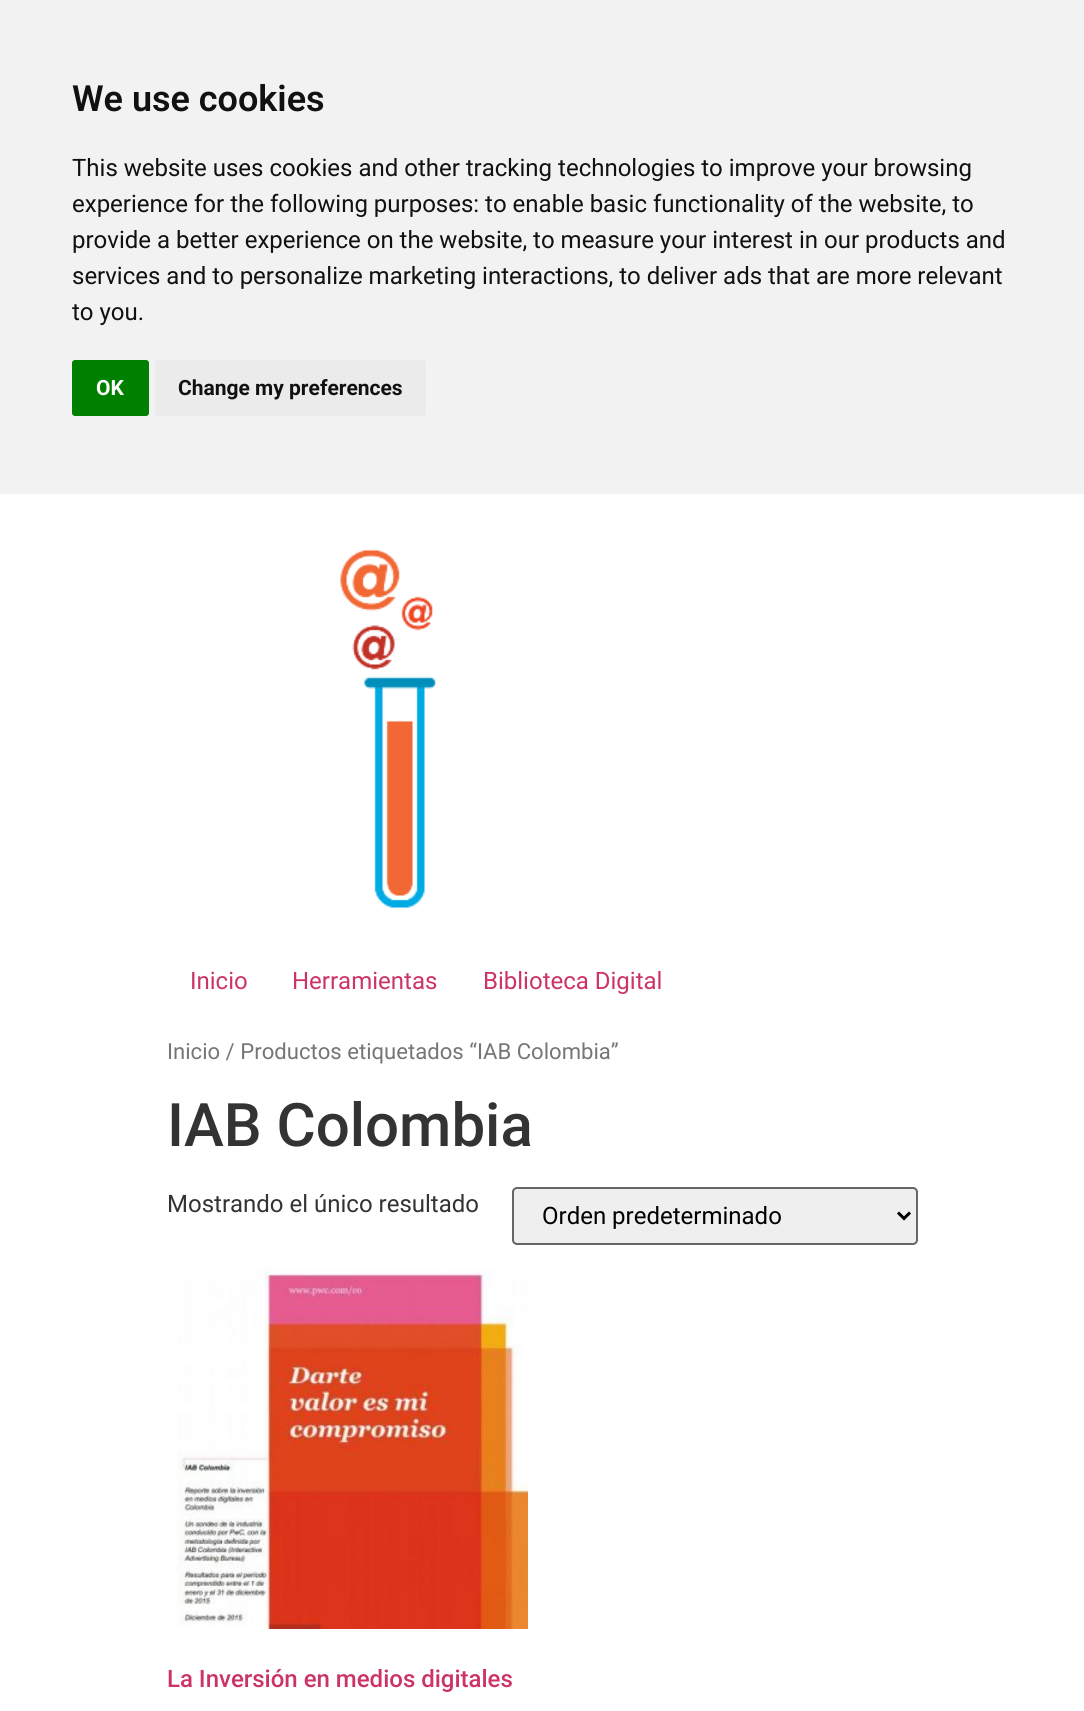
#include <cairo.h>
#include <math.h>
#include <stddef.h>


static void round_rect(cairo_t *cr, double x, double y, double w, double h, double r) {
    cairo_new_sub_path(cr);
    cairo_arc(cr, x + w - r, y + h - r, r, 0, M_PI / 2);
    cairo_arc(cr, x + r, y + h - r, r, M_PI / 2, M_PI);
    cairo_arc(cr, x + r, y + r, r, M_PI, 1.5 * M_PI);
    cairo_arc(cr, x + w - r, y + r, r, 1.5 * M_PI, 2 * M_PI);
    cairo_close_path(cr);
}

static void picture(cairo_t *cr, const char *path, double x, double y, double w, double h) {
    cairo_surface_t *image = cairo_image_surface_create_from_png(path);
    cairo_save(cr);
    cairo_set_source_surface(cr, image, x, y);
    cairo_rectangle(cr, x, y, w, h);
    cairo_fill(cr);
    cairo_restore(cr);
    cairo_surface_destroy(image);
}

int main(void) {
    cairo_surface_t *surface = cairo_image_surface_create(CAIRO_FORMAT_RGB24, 1084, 1711);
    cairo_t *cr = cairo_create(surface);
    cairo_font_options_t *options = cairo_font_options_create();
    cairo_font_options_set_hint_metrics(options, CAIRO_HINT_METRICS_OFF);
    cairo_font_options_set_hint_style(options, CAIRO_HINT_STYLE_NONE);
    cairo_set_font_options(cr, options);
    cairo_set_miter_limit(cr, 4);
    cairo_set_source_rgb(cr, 1, 1, 1);
    cairo_paint(cr);
    cairo_set_source_rgb(cr, 0.949, 0.949, 0.949);
    cairo_rectangle(cr, 0, 0, 1084, 494);
    cairo_fill(cr);
    cairo_select_font_face(cr, "Roboto SemiBold", CAIRO_FONT_SLANT_NORMAL, CAIRO_FONT_WEIGHT_NORMAL);
    cairo_set_font_size(cr, 36);
    cairo_set_source_rgb(cr, 0.067, 0.067, 0.067);
    cairo_move_to(cr, 72, 111);
    cairo_show_text(cr, "We use cookies");
    cairo_select_font_face(cr, "Roboto", CAIRO_FONT_SLANT_NORMAL, CAIRO_FONT_WEIGHT_NORMAL);
    cairo_set_font_size(cr, 24);
    cairo_move_to(cr, 72, 176);
    cairo_show_text(cr, "This website uses cookies and other tracking technologies to improve your browsing");
    cairo_move_to(cr, 72, 212);
    cairo_show_text(cr, "experience for the following purposes: to enable basic functionality of the website, to");
    cairo_move_to(cr, 72, 248);
    cairo_show_text(cr, "provide a better experience on the website, to measure your interest in our products and");
    cairo_move_to(cr, 72, 284);
    cairo_show_text(cr, "services and to personalize marketing interactions, to deliver ads that are more relevant");
    cairo_move_to(cr, 72, 320);
    cairo_show_text(cr, "to you.");
    cairo_set_source_rgb(cr, 0, 0.502, 0);
    round_rect(cr, 72, 360, 77, 56, 3);
    cairo_fill(cr);
    cairo_select_font_face(cr, "Roboto", CAIRO_FONT_SLANT_NORMAL, CAIRO_FONT_WEIGHT_BOLD);
    cairo_set_font_size(cr, 21);
    cairo_set_source_rgb(cr, 1, 1, 1);
    cairo_move_to(cr, 96, 395);
    cairo_show_text(cr, "OK");
    cairo_set_source_rgb(cr, 0.918, 0.918, 0.918);
    round_rect(cr, 155, 360, 271, 56, 3);
    cairo_fill(cr);
    cairo_set_source_rgb(cr, 0.067, 0.067, 0.067);
    cairo_move_to(cr, 178, 395);
    cairo_show_text(cr, "Change my preferences");
    picture(cr, "img1.png", 340, 549, 96, 359);
    cairo_select_font_face(cr, "Roboto", CAIRO_FONT_SLANT_NORMAL, CAIRO_FONT_WEIGHT_NORMAL);
    cairo_set_font_size(cr, 24);
    cairo_set_source_rgb(cr, 0.8, 0.2, 0.4);
    cairo_move_to(cr, 190, 989);
    cairo_show_text(cr, "Inicio");
    cairo_move_to(cr, 292, 989);
    cairo_show_text(cr, "Herramientas");
    cairo_move_to(cr, 483, 989);
    cairo_show_text(cr, "Biblioteca Digital");
    cairo_set_font_size(cr, 22.1);
    cairo_set_source_rgb(cr, 0.463, 0.463, 0.463);
    cairo_move_to(cr, 167, 1059);
    cairo_show_text(cr, "Inicio / Productos etiquetados “IAB Colombia”");
    cairo_select_font_face(cr, "Roboto Medium", CAIRO_FONT_SLANT_NORMAL, CAIRO_FONT_WEIGHT_NORMAL);
    cairo_set_font_size(cr, 60);
    cairo_set_source_rgb(cr, 0.2, 0.2, 0.2);
    cairo_move_to(cr, 167, 1146);
    cairo_show_text(cr, "IAB Colombia");
    cairo_select_font_face(cr, "Roboto", CAIRO_FONT_SLANT_NORMAL, CAIRO_FONT_WEIGHT_NORMAL);
    cairo_set_font_size(cr, 24);
    cairo_move_to(cr, 167, 1212);
    cairo_show_text(cr, "Mostrando el único resultado");
    cairo_set_source_rgb(cr, 0.937, 0.937, 0.937);
    round_rect(cr, 513, 1188, 404, 56, 4);
    cairo_fill_preserve(cr);
    cairo_set_source_rgb(cr, 0.4, 0.4, 0.4);
    cairo_stroke(cr);
    cairo_new_path(cr);
    cairo_move_to(cr, 898, 1212.5);
    cairo_line_to(cr, 904, 1218.5);
    cairo_line_to(cr, 910, 1212.5);
    cairo_set_source_rgb(cr, 0, 0, 0);
    cairo_set_line_width(cr, 3);
    cairo_stroke(cr);
    cairo_move_to(cr, 542, 1224);
    cairo_show_text(cr, "Orden predeterminado");
    picture(cr, "img2.png", 177, 1269, 351, 360);
    cairo_select_font_face(cr, "Roboto Medium", CAIRO_FONT_SLANT_NORMAL, CAIRO_FONT_WEIGHT_NORMAL);
    cairo_set_source_rgb(cr, 0.8, 0.2, 0.4);
    cairo_move_to(cr, 167, 1687);
    cairo_show_text(cr, "La Inversión en medios digitales");
    cairo_surface_write_to_png(surface, "page.png");
    cairo_font_options_destroy(options);
    cairo_destroy(cr);
    cairo_surface_destroy(surface);
    return 0;
}
